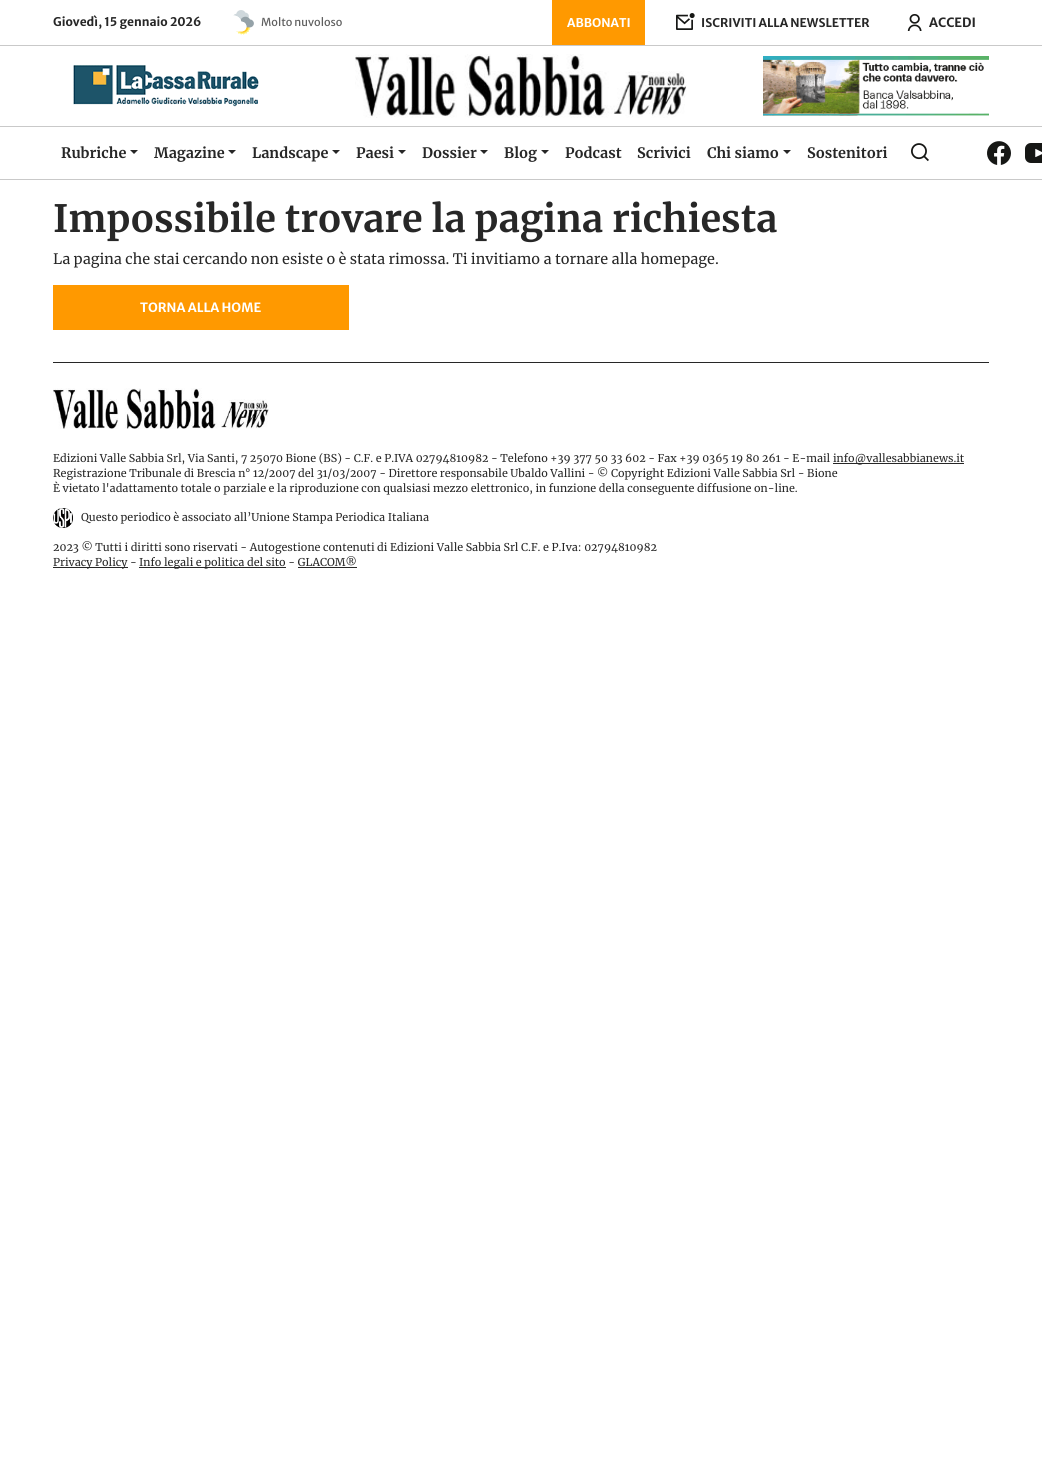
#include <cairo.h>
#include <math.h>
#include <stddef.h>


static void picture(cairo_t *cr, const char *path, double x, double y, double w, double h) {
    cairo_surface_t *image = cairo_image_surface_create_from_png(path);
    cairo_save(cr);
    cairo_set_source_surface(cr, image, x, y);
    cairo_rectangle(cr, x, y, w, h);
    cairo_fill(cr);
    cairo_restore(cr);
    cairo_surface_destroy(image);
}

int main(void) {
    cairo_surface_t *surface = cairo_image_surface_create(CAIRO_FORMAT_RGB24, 1042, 1472);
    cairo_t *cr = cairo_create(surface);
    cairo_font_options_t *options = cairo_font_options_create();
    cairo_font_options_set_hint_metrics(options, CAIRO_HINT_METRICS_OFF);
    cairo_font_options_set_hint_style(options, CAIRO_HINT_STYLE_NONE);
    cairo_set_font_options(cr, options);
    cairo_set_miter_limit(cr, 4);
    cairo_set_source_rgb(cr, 1, 1, 1);
    cairo_paint(cr);
    cairo_select_font_face(cr, "Merriweather Sans", CAIRO_FONT_SLANT_NORMAL, CAIRO_FONT_WEIGHT_BOLD);
    cairo_set_font_size(cr, 12);
    cairo_set_source_rgb(cr, 0.153, 0.153, 0.153);
    cairo_move_to(cr, 53, 26);
    cairo_show_text(cr, "Giovedì, 15 gennaio 2026");
    picture(cr, "img1.png", 233, 10, 21, 25);
    cairo_select_font_face(cr, "Merriweather Sans", CAIRO_FONT_SLANT_NORMAL, CAIRO_FONT_WEIGHT_NORMAL);
    cairo_set_font_size(cr, 11);
    cairo_set_source_rgb(cr, 0.373, 0.373, 0.373);
    cairo_move_to(cr, 261, 26);
    cairo_show_text(cr, "Molto nuvoloso");
    cairo_set_source_rgb(cr, 1, 0.6, 0);
    cairo_rectangle(cr, 552, 0, 93, 45);
    cairo_fill(cr);
    cairo_select_font_face(cr, "Merriweather Sans", CAIRO_FONT_SLANT_NORMAL, CAIRO_FONT_WEIGHT_BOLD);
    cairo_set_font_size(cr, 12);
    cairo_set_source_rgb(cr, 1, 1, 1);
    cairo_move_to(cr, 567, 27);
    cairo_show_text(cr, "ABBONATI");
    picture(cr, "img2.png", 676, 13, 19, 17);
    cairo_set_source_rgb(cr, 0.153, 0.153, 0.153);
    cairo_move_to(cr, 701, 27);
    cairo_show_text(cr, "ISCRIVITI ALLA NEWSLETTER");
    picture(cr, "img3.png", 907, 14, 15, 17);
    cairo_set_font_size(cr, 12.75);
    cairo_move_to(cr, 929, 27);
    cairo_show_text(cr, "ACCEDI");
    cairo_set_source_rgb(cr, 0.788, 0.788, 0.788);
    cairo_rectangle(cr, 0, 45, 1042, 1);
    cairo_fill(cr);
    picture(cr, "img4.png", 73, 65, 186, 42);
    picture(cr, "img5.png", 355, 54, 332, 64);
    picture(cr, "img6.png", 763, 56, 226, 60);
    cairo_rectangle(cr, 0, 126, 1042, 1);
    cairo_fill(cr);
    cairo_select_font_face(cr, "Merriweather", CAIRO_FONT_SLANT_NORMAL, CAIRO_FONT_WEIGHT_BOLD);
    cairo_set_font_size(cr, 14.4);
    cairo_set_source_rgb(cr, 0.153, 0.153, 0.153);
    cairo_move_to(cr, 61, 158);
    cairo_show_text(cr, "Rubriche");
    cairo_new_path(cr);
    cairo_move_to(cr, 130, 150);
    cairo_line_to(cr, 138, 150);
    cairo_line_to(cr, 134, 154);
    cairo_close_path(cr);
    cairo_fill(cr);
    cairo_move_to(cr, 154, 158);
    cairo_show_text(cr, "Magazine");
    cairo_new_path(cr);
    cairo_move_to(cr, 228, 150);
    cairo_line_to(cr, 236, 150);
    cairo_line_to(cr, 232, 154);
    cairo_close_path(cr);
    cairo_fill(cr);
    cairo_move_to(cr, 252, 158);
    cairo_show_text(cr, "Landscape");
    cairo_new_path(cr);
    cairo_move_to(cr, 332, 150);
    cairo_line_to(cr, 340, 150);
    cairo_line_to(cr, 336, 154);
    cairo_close_path(cr);
    cairo_fill(cr);
    cairo_move_to(cr, 356, 158);
    cairo_show_text(cr, "Paesi");
    cairo_new_path(cr);
    cairo_move_to(cr, 398, 150);
    cairo_line_to(cr, 406, 150);
    cairo_line_to(cr, 402, 154);
    cairo_close_path(cr);
    cairo_fill(cr);
    cairo_move_to(cr, 422, 158);
    cairo_show_text(cr, "Dossier");
    cairo_new_path(cr);
    cairo_move_to(cr, 480, 150);
    cairo_line_to(cr, 488, 150);
    cairo_line_to(cr, 484, 154);
    cairo_close_path(cr);
    cairo_fill(cr);
    cairo_move_to(cr, 504, 158);
    cairo_show_text(cr, "Blog");
    cairo_new_path(cr);
    cairo_move_to(cr, 541, 150);
    cairo_line_to(cr, 549, 150);
    cairo_line_to(cr, 545, 154);
    cairo_close_path(cr);
    cairo_fill(cr);
    cairo_move_to(cr, 565, 158);
    cairo_show_text(cr, "Podcast");
    cairo_move_to(cr, 637, 158);
    cairo_show_text(cr, "Scrivici");
    cairo_move_to(cr, 707, 158);
    cairo_show_text(cr, "Chi siamo");
    cairo_new_path(cr);
    cairo_move_to(cr, 783, 150);
    cairo_line_to(cr, 791, 150);
    cairo_line_to(cr, 787, 154);
    cairo_close_path(cr);
    cairo_fill(cr);
    cairo_move_to(cr, 807, 158);
    cairo_show_text(cr, "Sostenitori");
    picture(cr, "img7.png", 911, 143, 18, 19);
    picture(cr, "img8.png", 987, 141, 24, 24);
    picture(cr, "img9.png", 1025, 143, 17, 20);
    cairo_set_source_rgb(cr, 0.788, 0.788, 0.788);
    cairo_rectangle(cr, 0, 179, 1042, 1);
    cairo_fill(cr);
    cairo_set_font_size(cr, 37.6);
    cairo_set_source_rgb(cr, 0.153, 0.153, 0.153);
    cairo_move_to(cr, 53, 232);
    cairo_show_text(cr, "Impossibile trovare la pagina richiesta");
    cairo_select_font_face(cr, "Merriweather", CAIRO_FONT_SLANT_NORMAL, CAIRO_FONT_WEIGHT_NORMAL);
    cairo_set_font_size(cr, 14.4);
    cairo_move_to(cr, 53, 264);
    cairo_show_text(cr, "La pagina che stai cercando non esiste o è stata rimossa. Ti invitiamo a tornare alla homepage.");
    cairo_set_source_rgb(cr, 1, 0.6, 0);
    cairo_rectangle(cr, 53, 285, 296, 45);
    cairo_fill(cr);
    cairo_select_font_face(cr, "Merriweather Sans", CAIRO_FONT_SLANT_NORMAL, CAIRO_FONT_WEIGHT_BOLD);
    cairo_set_font_size(cr, 12.75);
    cairo_set_source_rgb(cr, 1, 1, 1);
    cairo_move_to(cr, 140, 312);
    cairo_show_text(cr, "TORNA ALLA HOME");
    cairo_set_source_rgb(cr, 0.153, 0.153, 0.153);
    cairo_rectangle(cr, 53, 362, 936, 1);
    cairo_fill(cr);
    picture(cr, "img10.png", 53, 388, 216, 41);
    cairo_select_font_face(cr, "Merriweather", CAIRO_FONT_SLANT_NORMAL, CAIRO_FONT_WEIGHT_NORMAL);
    cairo_set_font_size(cr, 10.8);
    cairo_move_to(cr, 53, 462);
    cairo_show_text(cr, "Edizioni Valle Sabbia Srl, Via Santi, 7 25070 Bione (BS) - C.F. e P.IVA 02794810982 - Telefono +39 377 50 33 602 - Fax +39 0365 19 80 261 - E-mail");
    cairo_rectangle(cr, 833, 463, 131, 1);
    cairo_fill(cr);
    cairo_move_to(cr, 833, 462);
    cairo_show_text(cr, "info@vallesabbianews.it");
    cairo_move_to(cr, 53, 477);
    cairo_show_text(cr, "Registrazione Tribunale di Brescia n° 12/2007 del 31/03/2007 - Direttore responsabile Ubaldo Vallini - © Copyright Edizioni Valle Sabbia Srl - Bione");
    cairo_move_to(cr, 53, 492);
    cairo_show_text(cr, "È vietato l'adattamento totale o parziale e la riproduzione con qualsiasi mezzo elettronico, in funzione della conseguente diffusione on-line.");
    picture(cr, "img11.png", 53, 508, 20, 20);
    cairo_move_to(cr, 81, 521);
    cairo_show_text(cr, "Questo periodico è associato all’Unione Stampa Periodica Italiana");
    cairo_move_to(cr, 53, 551);
    cairo_show_text(cr, "2023 © Tutti i diritti sono riservati - Autogestione contenuti di Edizioni Valle Sabbia Srl C.F. e P.Iva: 02794810982");
    cairo_rectangle(cr, 53, 567, 75, 1);
    cairo_fill(cr);
    cairo_move_to(cr, 53, 566);
    cairo_show_text(cr, "Privacy Policy -");
    cairo_rectangle(cr, 139, 567, 147, 1);
    cairo_fill(cr);
    cairo_move_to(cr, 139, 566);
    cairo_show_text(cr, "Info legali e politica del sito - GLACOM®");
    cairo_rectangle(cr, 298, 567, 59, 1);
    cairo_fill(cr);
    cairo_surface_write_to_png(surface, "page.png");
    cairo_font_options_destroy(options);
    cairo_destroy(cr);
    cairo_surface_destroy(surface);
    return 0;
}
